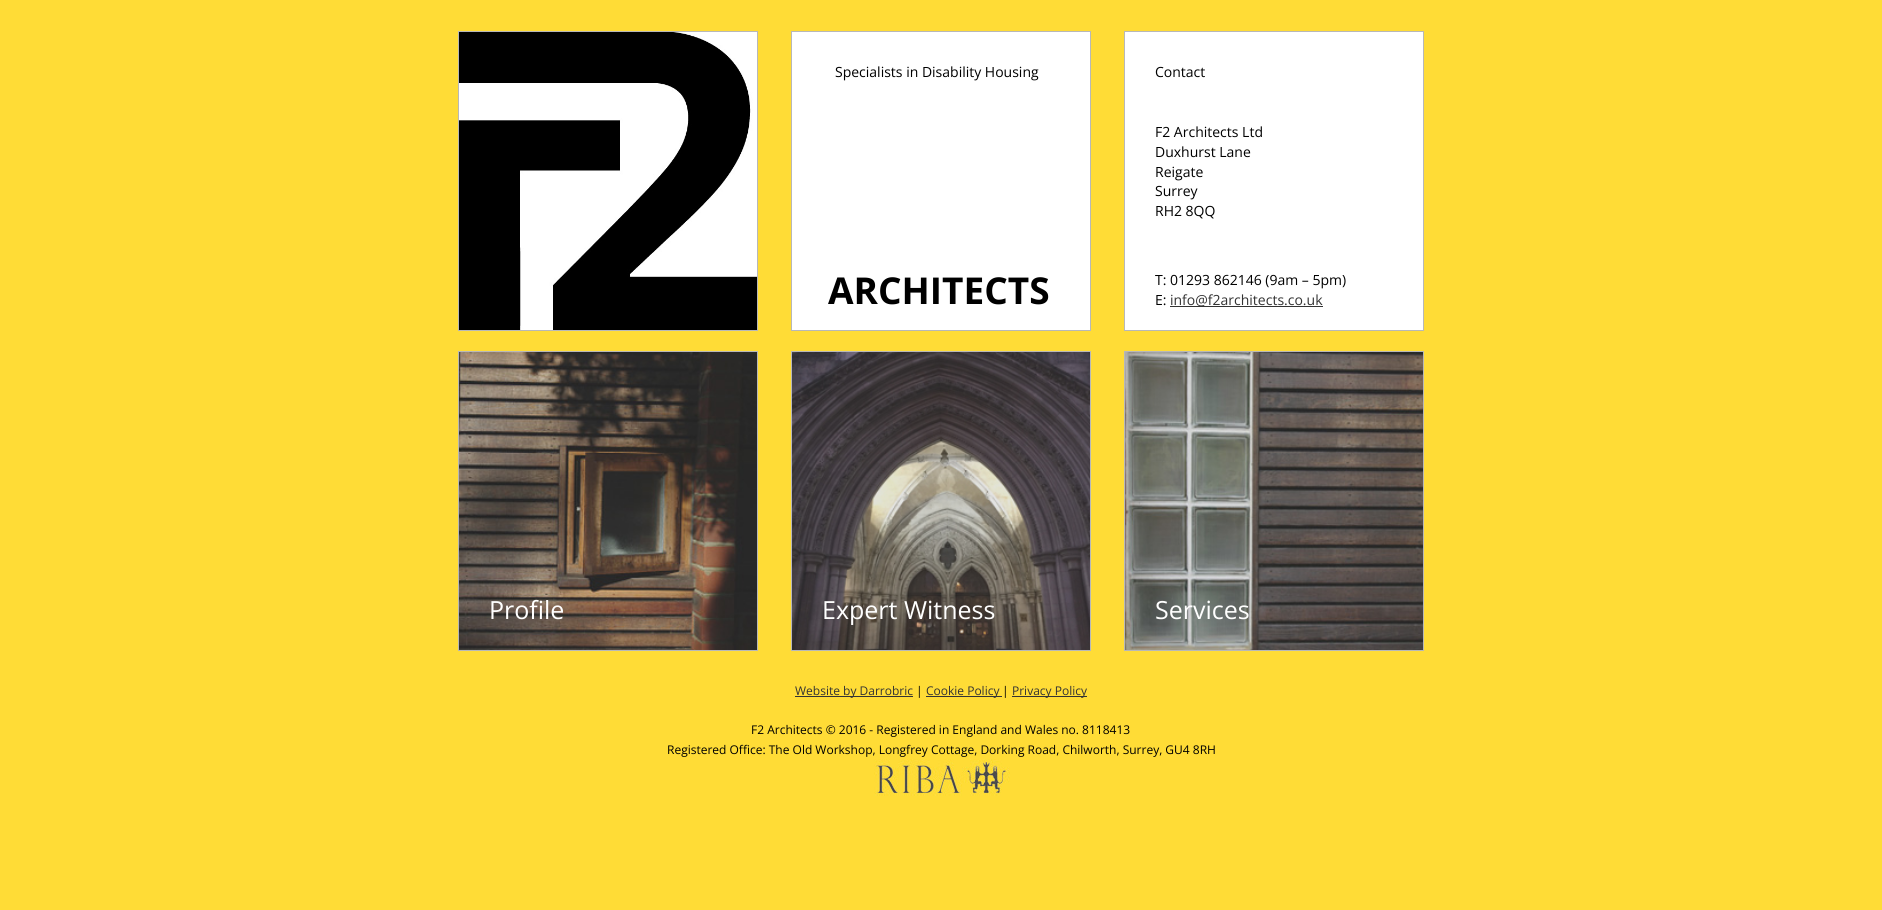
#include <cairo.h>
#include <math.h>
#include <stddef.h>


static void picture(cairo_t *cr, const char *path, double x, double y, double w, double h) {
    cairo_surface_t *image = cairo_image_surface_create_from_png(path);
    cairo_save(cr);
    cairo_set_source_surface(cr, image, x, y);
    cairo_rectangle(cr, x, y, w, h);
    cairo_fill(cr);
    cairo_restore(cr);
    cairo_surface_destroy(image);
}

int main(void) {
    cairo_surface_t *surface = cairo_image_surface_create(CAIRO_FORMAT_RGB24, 1882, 910);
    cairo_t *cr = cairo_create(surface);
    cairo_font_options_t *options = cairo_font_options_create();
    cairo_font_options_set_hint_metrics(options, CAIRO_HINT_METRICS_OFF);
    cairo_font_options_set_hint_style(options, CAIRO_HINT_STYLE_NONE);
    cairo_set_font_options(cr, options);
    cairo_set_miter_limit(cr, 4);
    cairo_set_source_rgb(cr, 1, 0.863, 0.212);
    cairo_paint(cr);
    picture(cr, "img1.png", 459, 32, 298, 298);
    cairo_rectangle(cr, 458.5, 31.5, 299, 299);
    cairo_set_source_rgb(cr, 0.722, 0.722, 0.722);
    cairo_set_line_width(cr, 1);
    cairo_stroke(cr);
    cairo_set_source_rgb(cr, 1, 1, 1);
    cairo_rectangle(cr, 791.5, 31.5, 299, 299);
    cairo_fill_preserve(cr);
    cairo_set_source_rgb(cr, 0.722, 0.722, 0.722);
    cairo_stroke(cr);
    cairo_select_font_face(cr, "Open Sans", CAIRO_FONT_SLANT_NORMAL, CAIRO_FONT_WEIGHT_NORMAL);
    cairo_set_font_size(cr, 14);
    cairo_set_source_rgb(cr, 0, 0, 0);
    cairo_move_to(cr, 835, 77);
    cairo_show_text(cr, "Specialists in Disability Housing");
    cairo_select_font_face(cr, "Open Sans", CAIRO_FONT_SLANT_NORMAL, CAIRO_FONT_WEIGHT_BOLD);
    cairo_set_font_size(cr, 37);
    cairo_move_to(cr, 828, 304);
    cairo_show_text(cr, "ARCHITECTS");
    cairo_set_source_rgb(cr, 1, 1, 1);
    cairo_rectangle(cr, 1124.5, 31.5, 299, 299);
    cairo_fill_preserve(cr);
    cairo_set_source_rgb(cr, 0.722, 0.722, 0.722);
    cairo_stroke(cr);
    cairo_select_font_face(cr, "Open Sans", CAIRO_FONT_SLANT_NORMAL, CAIRO_FONT_WEIGHT_NORMAL);
    cairo_set_font_size(cr, 14);
    cairo_set_source_rgb(cr, 0, 0, 0);
    cairo_move_to(cr, 1155, 77);
    cairo_show_text(cr, "Contact");
    cairo_move_to(cr, 1155, 137);
    cairo_show_text(cr, "F2 Architects Ltd");
    cairo_move_to(cr, 1155, 157);
    cairo_show_text(cr, "Duxhurst Lane");
    cairo_move_to(cr, 1155, 177);
    cairo_show_text(cr, "Reigate");
    cairo_move_to(cr, 1155, 196);
    cairo_show_text(cr, "Surrey");
    cairo_move_to(cr, 1155, 216);
    cairo_show_text(cr, "RH2 8QQ");
    cairo_move_to(cr, 1155, 285);
    cairo_show_text(cr, "T: 01293 862146 (9am – 5pm)");
    cairo_move_to(cr, 1155, 305);
    cairo_show_text(cr, "E:");
    cairo_set_source_rgb(cr, 0.2, 0.2, 0.2);
    cairo_rectangle(cr, 1170, 306, 153, 1);
    cairo_fill(cr);
    cairo_move_to(cr, 1170, 305);
    cairo_show_text(cr, "info@f2architects.co.uk");
    picture(cr, "img2.png", 459, 352, 298, 298);
    cairo_rectangle(cr, 458.5, 351.5, 299, 299);
    cairo_set_source_rgb(cr, 0.722, 0.722, 0.722);
    cairo_stroke(cr);
    cairo_set_font_size(cr, 25);
    cairo_set_source_rgb(cr, 1, 1, 1);
    cairo_move_to(cr, 489, 619);
    cairo_show_text(cr, "Profile");
    picture(cr, "img3.png", 792, 352, 298, 298);
    cairo_rectangle(cr, 791.5, 351.5, 299, 299);
    cairo_set_source_rgb(cr, 0.722, 0.722, 0.722);
    cairo_stroke(cr);
    cairo_set_source_rgb(cr, 1, 1, 1);
    cairo_move_to(cr, 822, 619);
    cairo_show_text(cr, "Expert Witness");
    picture(cr, "img4.png", 1125, 352, 298, 298);
    cairo_rectangle(cr, 1124.5, 351.5, 299, 299);
    cairo_set_source_rgb(cr, 0.722, 0.722, 0.722);
    cairo_stroke(cr);
    cairo_set_source_rgb(cr, 1, 1, 1);
    cairo_move_to(cr, 1155, 619);
    cairo_show_text(cr, "Services");
    cairo_set_source_rgb(cr, 0.2, 0.2, 0.2);
    cairo_rectangle(cr, 795, 696, 118, 1);
    cairo_fill(cr);
    cairo_set_font_size(cr, 12);
    cairo_move_to(cr, 795, 695);
    cairo_show_text(cr, "Website by Darrobric");
    cairo_set_source_rgb(cr, 0, 0, 0);
    cairo_move_to(cr, 916, 695);
    cairo_show_text(cr, "|");
    cairo_set_source_rgb(cr, 0.2, 0.2, 0.2);
    cairo_rectangle(cr, 926, 696, 76, 1);
    cairo_fill(cr);
    cairo_move_to(cr, 926, 695);
    cairo_show_text(cr, "Cookie Policy");
    cairo_set_source_rgb(cr, 0, 0, 0);
    cairo_move_to(cr, 1002, 695);
    cairo_show_text(cr, "|");
    cairo_set_source_rgb(cr, 0.2, 0.2, 0.2);
    cairo_rectangle(cr, 1012, 696, 75, 1);
    cairo_fill(cr);
    cairo_move_to(cr, 1012, 695);
    cairo_show_text(cr, "Privacy Policy");
    cairo_set_source_rgb(cr, 0, 0, 0);
    cairo_move_to(cr, 751, 734);
    cairo_show_text(cr, "F2 Architects © 2016 - Registered in England and Wales no. 8118413");
    cairo_move_to(cr, 667, 754);
    cairo_show_text(cr, "Registered Office: The Old Workshop, Longfrey Cottage, Dorking Road, Chilworth, Surrey, GU4 8RH");
    picture(cr, "img5.png", 874, 759, 136, 37);
    cairo_surface_write_to_png(surface, "page.png");
    cairo_font_options_destroy(options);
    cairo_destroy(cr);
    cairo_surface_destroy(surface);
    return 0;
}
